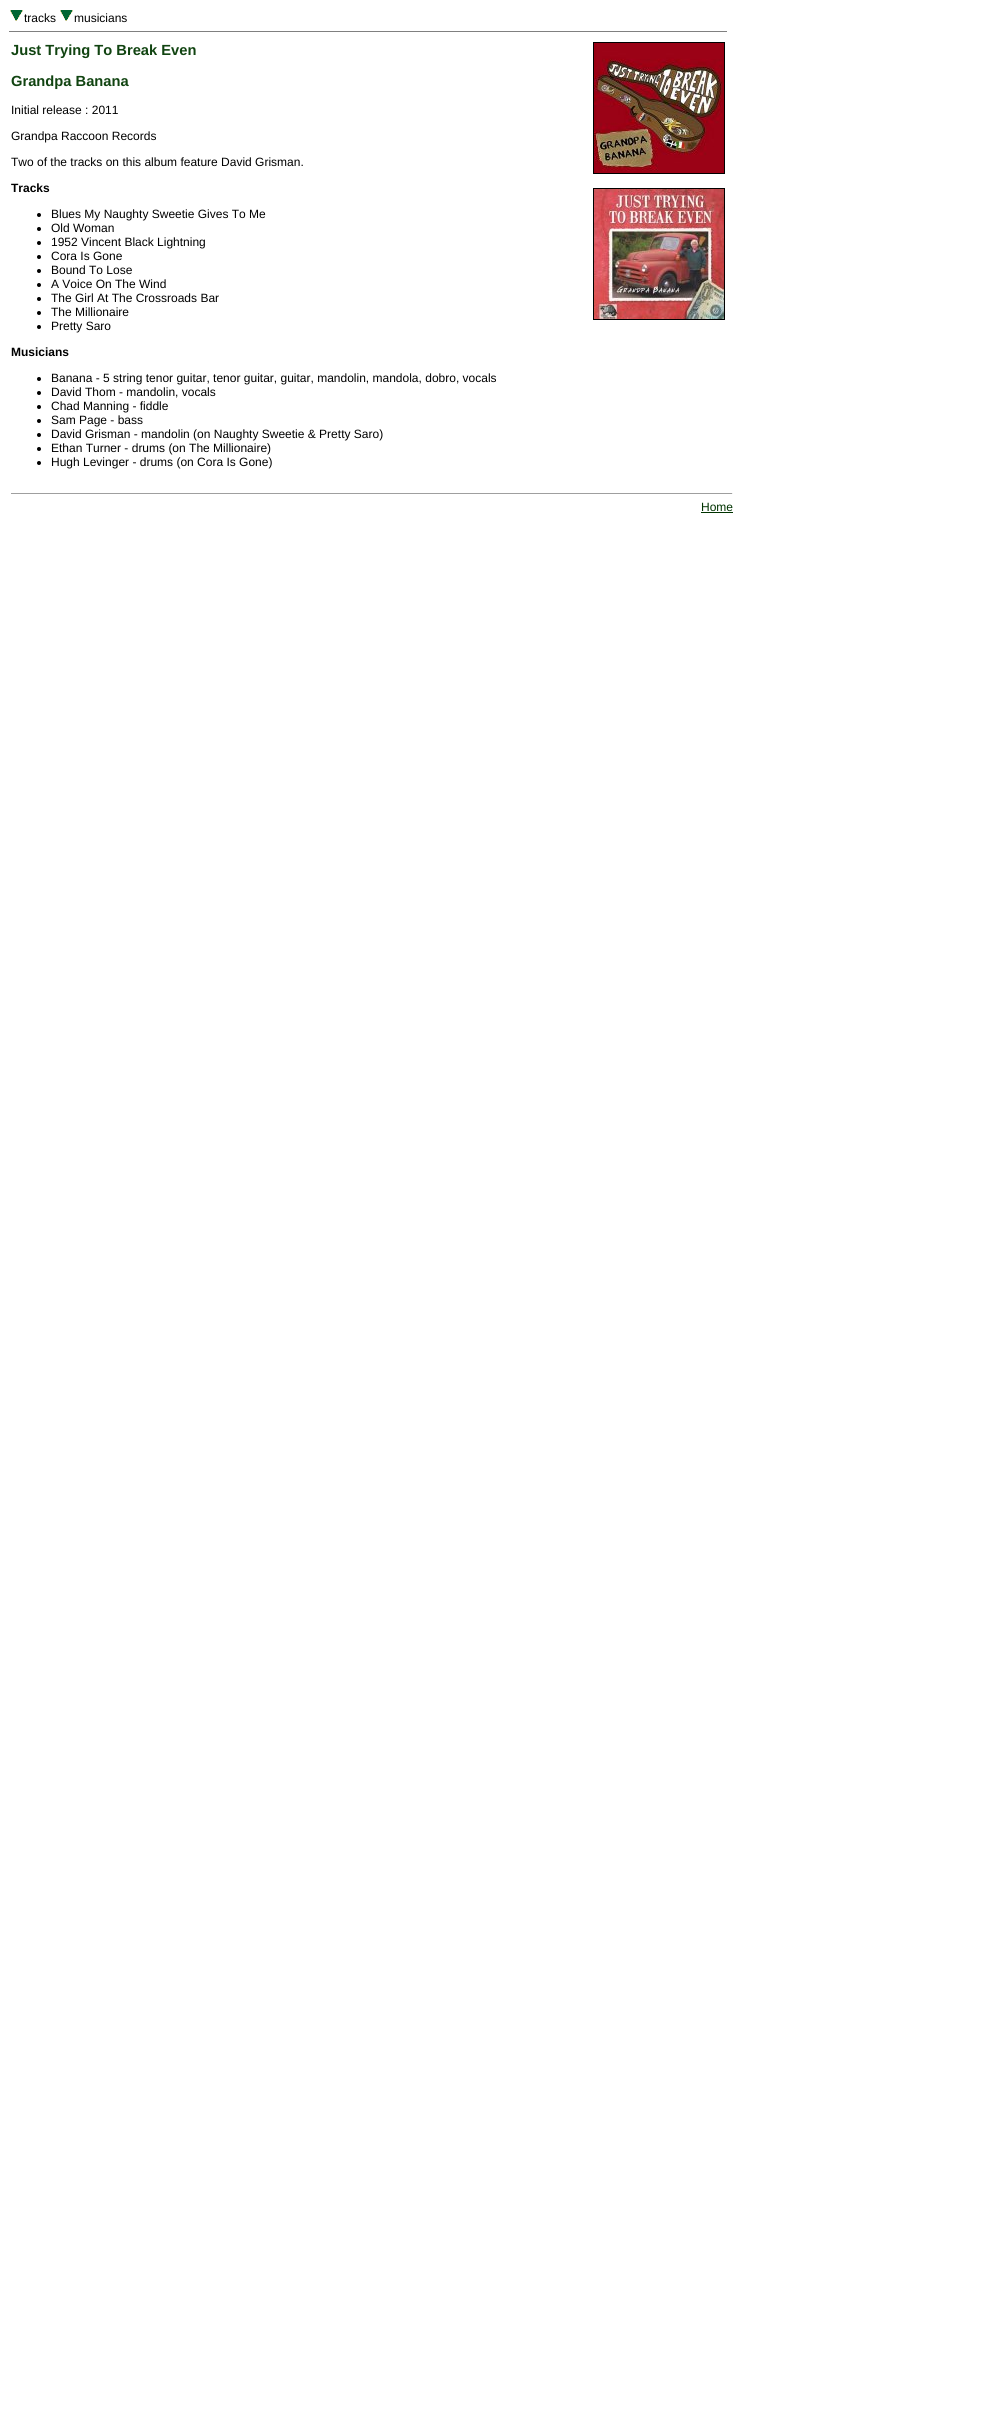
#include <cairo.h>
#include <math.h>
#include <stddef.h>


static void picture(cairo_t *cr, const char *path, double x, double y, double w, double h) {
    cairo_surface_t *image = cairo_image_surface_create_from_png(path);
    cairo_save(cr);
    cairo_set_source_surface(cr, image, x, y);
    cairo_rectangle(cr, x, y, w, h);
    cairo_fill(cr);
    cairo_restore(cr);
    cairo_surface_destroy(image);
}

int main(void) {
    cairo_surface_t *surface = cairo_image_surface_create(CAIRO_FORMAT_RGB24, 989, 2419);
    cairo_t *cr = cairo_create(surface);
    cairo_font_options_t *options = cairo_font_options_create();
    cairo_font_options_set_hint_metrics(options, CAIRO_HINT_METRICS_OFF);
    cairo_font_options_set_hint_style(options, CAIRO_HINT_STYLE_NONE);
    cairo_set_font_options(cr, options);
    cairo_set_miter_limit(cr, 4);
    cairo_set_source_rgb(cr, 1, 1, 1);
    cairo_paint(cr);
    picture(cr, "img1.png", 10, 10, 13, 11);
    cairo_select_font_face(cr, "Liberation Sans", CAIRO_FONT_SLANT_NORMAL, CAIRO_FONT_WEIGHT_NORMAL);
    cairo_set_font_size(cr, 12);
    cairo_set_source_rgb(cr, 0, 0, 0);
    cairo_move_to(cr, 24, 22);
    cairo_show_text(cr, "tracks");
    picture(cr, "img1.png", 60, 10, 13, 11);
    cairo_move_to(cr, 74, 22);
    cairo_show_text(cr, "musicians");
    cairo_set_source_rgb(cr, 0.502, 0.502, 0.502);
    cairo_rectangle(cr, 9, 31, 718, 1);
    cairo_fill(cr);
    cairo_select_font_face(cr, "Liberation Sans", CAIRO_FONT_SLANT_NORMAL, CAIRO_FONT_WEIGHT_BOLD);
    cairo_set_font_size(cr, 14.7);
    cairo_set_source_rgb(cr, 0.067, 0.267, 0.067);
    cairo_move_to(cr, 11, 55);
    cairo_show_text(cr, "Just Trying To Break Even");
    cairo_move_to(cr, 11, 86);
    cairo_show_text(cr, "Grandpa Banana");
    cairo_select_font_face(cr, "Liberation Sans", CAIRO_FONT_SLANT_NORMAL, CAIRO_FONT_WEIGHT_NORMAL);
    cairo_set_font_size(cr, 12);
    cairo_set_source_rgb(cr, 0, 0, 0);
    cairo_move_to(cr, 11, 114);
    cairo_show_text(cr, "Initial release : 2011");
    cairo_move_to(cr, 11, 140);
    cairo_show_text(cr, "Grandpa Raccoon Records");
    cairo_move_to(cr, 11, 166);
    cairo_show_text(cr, "Two of the tracks on this album feature David Grisman.");
    cairo_select_font_face(cr, "Liberation Sans", CAIRO_FONT_SLANT_NORMAL, CAIRO_FONT_WEIGHT_BOLD);
    cairo_move_to(cr, 11, 192);
    cairo_show_text(cr, "Tracks");
    cairo_new_path(cr);
    cairo_arc(cr, 39, 215, 2, 0, 2 * M_PI);
    cairo_fill(cr);
    cairo_select_font_face(cr, "Liberation Sans", CAIRO_FONT_SLANT_NORMAL, CAIRO_FONT_WEIGHT_NORMAL);
    cairo_move_to(cr, 51, 218);
    cairo_show_text(cr, "Blues My Naughty Sweetie Gives To Me");
    cairo_new_path(cr);
    cairo_arc(cr, 39, 229, 2, 0, 2 * M_PI);
    cairo_fill(cr);
    cairo_move_to(cr, 51, 232);
    cairo_show_text(cr, "Old Woman");
    cairo_new_path(cr);
    cairo_arc(cr, 39, 243, 2, 0, 2 * M_PI);
    cairo_fill(cr);
    cairo_move_to(cr, 51, 246);
    cairo_show_text(cr, "1952 Vincent Black Lightning");
    cairo_new_path(cr);
    cairo_arc(cr, 39, 257, 2, 0, 2 * M_PI);
    cairo_fill(cr);
    cairo_move_to(cr, 51, 260);
    cairo_show_text(cr, "Cora Is Gone");
    cairo_new_path(cr);
    cairo_arc(cr, 39, 271, 2, 0, 2 * M_PI);
    cairo_fill(cr);
    cairo_move_to(cr, 51, 274);
    cairo_show_text(cr, "Bound To Lose");
    cairo_new_path(cr);
    cairo_arc(cr, 39, 285, 2, 0, 2 * M_PI);
    cairo_fill(cr);
    cairo_move_to(cr, 51, 288);
    cairo_show_text(cr, "A Voice On The Wind");
    cairo_new_path(cr);
    cairo_arc(cr, 39, 299, 2, 0, 2 * M_PI);
    cairo_fill(cr);
    cairo_move_to(cr, 51, 302);
    cairo_show_text(cr, "The Girl At The Crossroads Bar");
    cairo_new_path(cr);
    cairo_arc(cr, 39, 313, 2, 0, 2 * M_PI);
    cairo_fill(cr);
    cairo_move_to(cr, 51, 316);
    cairo_show_text(cr, "The Millionaire");
    cairo_new_path(cr);
    cairo_arc(cr, 39, 327, 2, 0, 2 * M_PI);
    cairo_fill(cr);
    cairo_move_to(cr, 51, 330);
    cairo_show_text(cr, "Pretty Saro");
    cairo_select_font_face(cr, "Liberation Sans", CAIRO_FONT_SLANT_NORMAL, CAIRO_FONT_WEIGHT_BOLD);
    cairo_move_to(cr, 11, 356);
    cairo_show_text(cr, "Musicians");
    cairo_new_path(cr);
    cairo_arc(cr, 39, 379, 2, 0, 2 * M_PI);
    cairo_fill(cr);
    cairo_select_font_face(cr, "Liberation Sans", CAIRO_FONT_SLANT_NORMAL, CAIRO_FONT_WEIGHT_NORMAL);
    cairo_move_to(cr, 51, 382);
    cairo_show_text(cr, "Banana - 5 string tenor guitar, tenor guitar, guitar, mandolin, mandola, dobro, vocals");
    cairo_new_path(cr);
    cairo_arc(cr, 39, 393, 2, 0, 2 * M_PI);
    cairo_fill(cr);
    cairo_move_to(cr, 51, 396);
    cairo_show_text(cr, "David Thom - mandolin, vocals");
    cairo_new_path(cr);
    cairo_arc(cr, 39, 407, 2, 0, 2 * M_PI);
    cairo_fill(cr);
    cairo_move_to(cr, 51, 410);
    cairo_show_text(cr, "Chad Manning - fiddle");
    cairo_new_path(cr);
    cairo_arc(cr, 39, 421, 2, 0, 2 * M_PI);
    cairo_fill(cr);
    cairo_move_to(cr, 51, 424);
    cairo_show_text(cr, "Sam Page - bass");
    cairo_new_path(cr);
    cairo_arc(cr, 39, 435, 2, 0, 2 * M_PI);
    cairo_fill(cr);
    cairo_move_to(cr, 51, 438);
    cairo_show_text(cr, "David Grisman - mandolin (on Naughty Sweetie & Pretty Saro)");
    cairo_new_path(cr);
    cairo_arc(cr, 39, 449, 2, 0, 2 * M_PI);
    cairo_fill(cr);
    cairo_move_to(cr, 51, 452);
    cairo_show_text(cr, "Ethan Turner - drums (on The Millionaire)");
    cairo_new_path(cr);
    cairo_arc(cr, 39, 463, 2, 0, 2 * M_PI);
    cairo_fill(cr);
    cairo_move_to(cr, 51, 466);
    cairo_show_text(cr, "Hugh Levinger - drums (on Cora Is Gone)");
    cairo_rectangle(cr, 593.5, 42.5, 131, 131);
    cairo_set_line_width(cr, 1);
    cairo_stroke(cr);
    picture(cr, "img2.png", 594, 43, 130, 130);
    cairo_rectangle(cr, 593.5, 188.5, 131, 131);
    cairo_stroke(cr);
    picture(cr, "img3.png", 594, 189, 130, 130);
    cairo_set_source_rgb(cr, 0.624, 0.624, 0.624);
    cairo_rectangle(cr, 11, 493, 722, 1);
    cairo_fill(cr);
    cairo_set_source_rgb(cr, 0.933, 0.933, 0.933);
    cairo_rectangle(cr, 732, 493, 1, 1);
    cairo_fill(cr);
    cairo_set_source_rgb(cr, 0, 0.2, 0);
    cairo_move_to(cr, 701, 511);
    cairo_show_text(cr, "Home");
    cairo_rectangle(cr, 701, 512, 32, 1);
    cairo_fill(cr);
    cairo_surface_write_to_png(surface, "page.png");
    cairo_font_options_destroy(options);
    cairo_destroy(cr);
    cairo_surface_destroy(surface);
    return 0;
}
